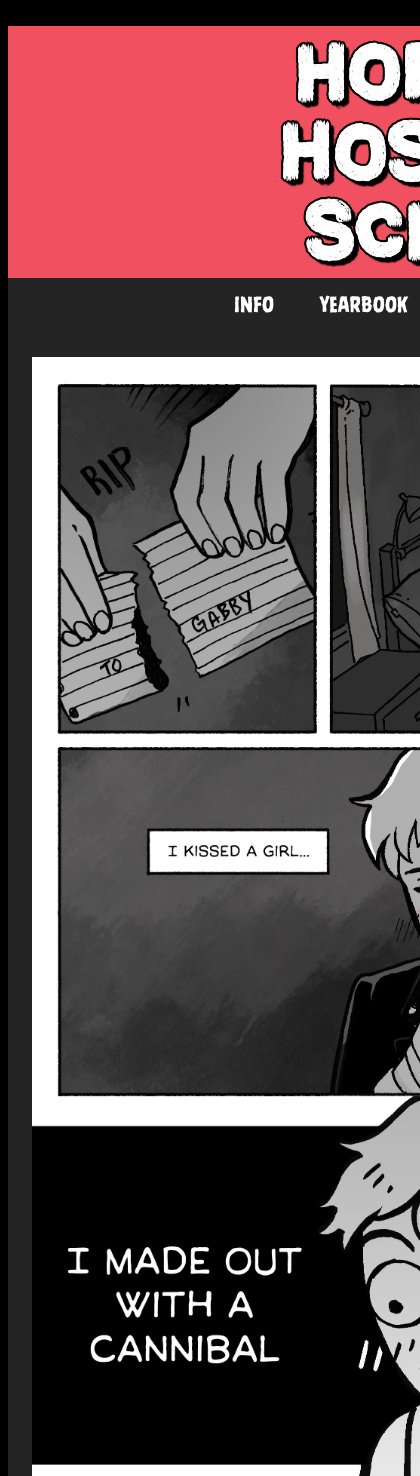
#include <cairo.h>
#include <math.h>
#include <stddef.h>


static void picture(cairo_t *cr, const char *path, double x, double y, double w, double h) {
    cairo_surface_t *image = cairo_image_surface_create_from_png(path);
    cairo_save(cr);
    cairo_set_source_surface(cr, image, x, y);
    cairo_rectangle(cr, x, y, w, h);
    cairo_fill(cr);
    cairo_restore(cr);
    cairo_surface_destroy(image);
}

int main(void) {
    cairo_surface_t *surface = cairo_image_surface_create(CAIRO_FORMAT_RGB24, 420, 1476);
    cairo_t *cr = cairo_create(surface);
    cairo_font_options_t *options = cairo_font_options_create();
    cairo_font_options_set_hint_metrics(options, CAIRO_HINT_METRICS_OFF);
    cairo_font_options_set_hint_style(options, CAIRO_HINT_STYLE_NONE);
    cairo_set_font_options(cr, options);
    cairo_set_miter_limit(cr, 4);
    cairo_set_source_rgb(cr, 0, 0, 0);
    cairo_paint(cr);
    cairo_set_source_rgb(cr, 0.945, 0.314, 0.376);
    cairo_rectangle(cr, 8, 26, 412, 252);
    cairo_fill(cr);
    picture(cr, "img1.png", 276, 39, 144, 228);
    cairo_set_source_rgb(cr, 0.141, 0.141, 0.141);
    cairo_rectangle(cr, 8, 278, 412, 1198);
    cairo_fill(cr);
    picture(cr, "img2.png", 32, 357, 388, 1119);
    cairo_select_font_face(cr, "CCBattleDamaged", CAIRO_FONT_SLANT_NORMAL, CAIRO_FONT_WEIGHT_NORMAL);
    cairo_set_font_size(cr, 20);
    cairo_set_source_rgb(cr, 1, 1, 1);
    cairo_move_to(cr, 234, 312);
    cairo_show_text(cr, "Info");
    cairo_move_to(cr, 319, 312);
    cairo_show_text(cr, "Yearbook");
    cairo_surface_write_to_png(surface, "page.png");
    cairo_font_options_destroy(options);
    cairo_destroy(cr);
    cairo_surface_destroy(surface);
    return 0;
}
